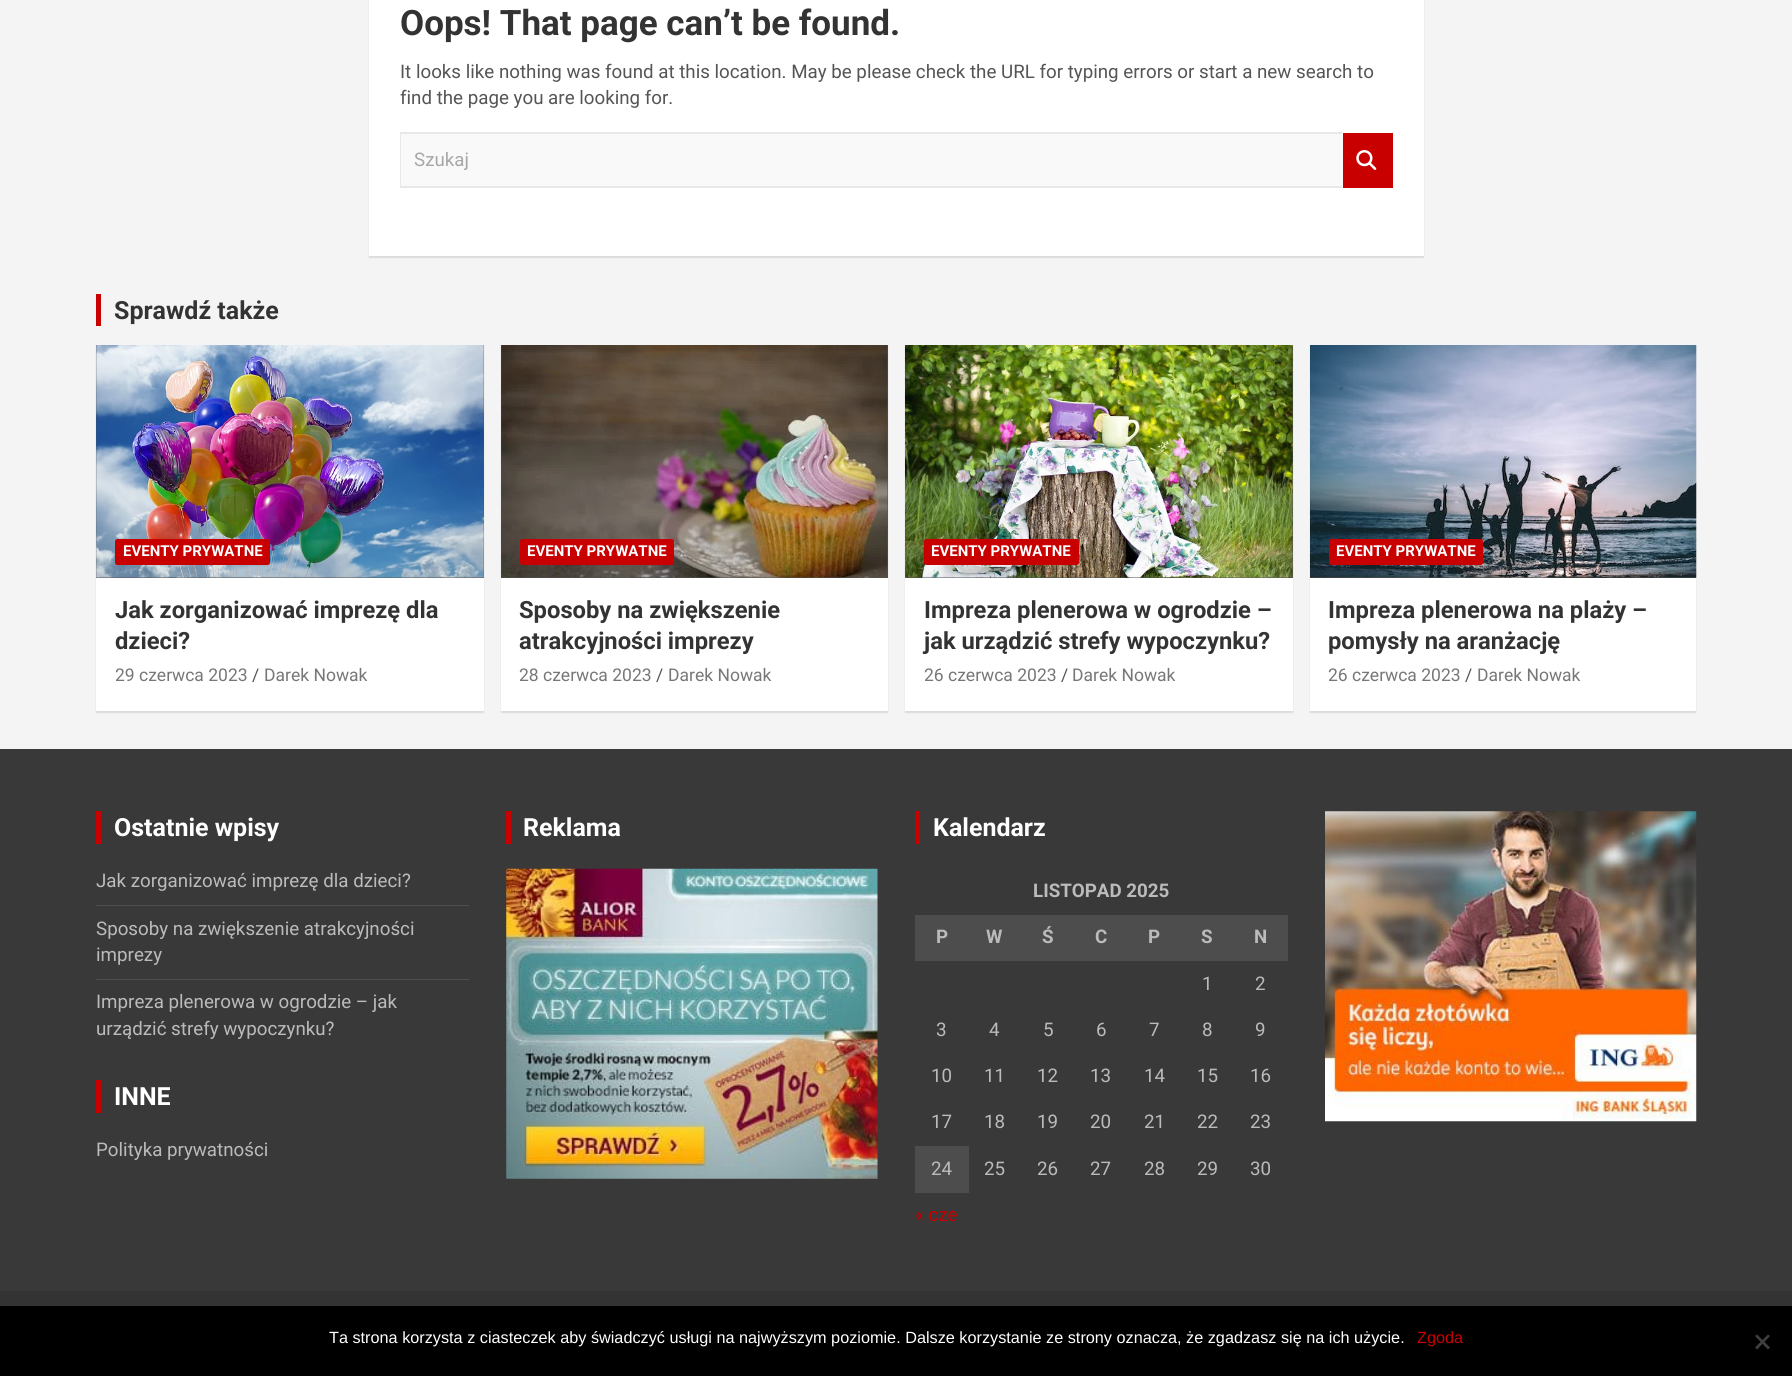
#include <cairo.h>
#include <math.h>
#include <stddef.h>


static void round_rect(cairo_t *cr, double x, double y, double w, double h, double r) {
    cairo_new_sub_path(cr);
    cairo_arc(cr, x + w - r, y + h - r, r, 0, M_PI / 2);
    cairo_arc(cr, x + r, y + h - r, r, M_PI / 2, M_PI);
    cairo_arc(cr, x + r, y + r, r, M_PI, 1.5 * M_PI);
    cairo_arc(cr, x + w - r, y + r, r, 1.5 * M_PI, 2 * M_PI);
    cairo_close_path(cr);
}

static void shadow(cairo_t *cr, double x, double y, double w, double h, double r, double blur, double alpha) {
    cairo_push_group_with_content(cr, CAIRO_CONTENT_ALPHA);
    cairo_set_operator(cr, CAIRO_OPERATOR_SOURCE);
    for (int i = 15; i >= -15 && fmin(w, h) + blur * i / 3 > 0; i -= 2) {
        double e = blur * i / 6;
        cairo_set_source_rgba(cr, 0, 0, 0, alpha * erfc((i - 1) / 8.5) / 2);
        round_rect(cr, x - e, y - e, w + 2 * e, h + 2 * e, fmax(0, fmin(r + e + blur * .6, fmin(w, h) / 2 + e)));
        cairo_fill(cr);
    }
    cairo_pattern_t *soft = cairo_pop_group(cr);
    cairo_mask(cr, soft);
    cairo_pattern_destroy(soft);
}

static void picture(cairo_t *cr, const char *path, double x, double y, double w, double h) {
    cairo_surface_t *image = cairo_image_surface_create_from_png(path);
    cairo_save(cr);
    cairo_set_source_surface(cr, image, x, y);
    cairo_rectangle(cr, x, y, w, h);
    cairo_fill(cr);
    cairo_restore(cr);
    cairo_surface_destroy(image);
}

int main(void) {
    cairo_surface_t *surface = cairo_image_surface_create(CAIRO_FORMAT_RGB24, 1792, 1376);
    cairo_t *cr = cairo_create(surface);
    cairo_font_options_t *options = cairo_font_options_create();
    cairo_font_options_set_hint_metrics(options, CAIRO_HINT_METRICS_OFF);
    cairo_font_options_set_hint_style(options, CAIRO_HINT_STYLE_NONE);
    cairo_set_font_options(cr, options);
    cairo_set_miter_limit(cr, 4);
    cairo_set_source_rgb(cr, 0.957, 0.957, 0.957);
    cairo_paint(cr);
    cairo_set_source_rgb(cr, 0, 0, 0);
    shadow(cr, 369, -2, 1055, 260, 0, 0.5, 0.1);
    cairo_set_source_rgb(cr, 1, 1, 1);
    cairo_rectangle(cr, 369, 0, 1055, 256);
    cairo_fill(cr);
    cairo_select_font_face(cr, "Roboto", CAIRO_FONT_SLANT_NORMAL, CAIRO_FONT_WEIGHT_BOLD);
    cairo_set_font_size(cr, 35);
    cairo_set_source_rgb(cr, 0.2, 0.2, 0.2);
    cairo_move_to(cr, 400, 35);
    cairo_show_text(cr, "Oops! That page can’t be found.");
    cairo_select_font_face(cr, "Roboto", CAIRO_FONT_SLANT_NORMAL, CAIRO_FONT_WEIGHT_NORMAL);
    cairo_set_font_size(cr, 18.75);
    cairo_set_source_rgb(cr, 0.333, 0.333, 0.333);
    cairo_move_to(cr, 400, 78);
    cairo_show_text(cr, "It looks like nothing was found at this location. May be please check the URL for typing errors or start a new search to");
    cairo_move_to(cr, 400, 104);
    cairo_show_text(cr, "find the page you are looking for.");
    cairo_set_source_rgb(cr, 0.976, 0.976, 0.976);
    cairo_rectangle(cr, 401, 134, 942, 52);
    cairo_fill(cr);
    cairo_set_source_rgb(cr, 0.91, 0.91, 0.91);
    cairo_new_path(cr);
    cairo_move_to(cr, 400, 132);
    cairo_line_to(cr, 1342, 132);
    cairo_line_to(cr, 1342, 134);
    cairo_line_to(cr, 401, 134);
    cairo_close_path(cr);
    cairo_fill(cr);
    cairo_new_path(cr);
    cairo_move_to(cr, 1342, 188);
    cairo_line_to(cr, 400, 188);
    cairo_line_to(cr, 401, 186);
    cairo_line_to(cr, 1342, 186);
    cairo_close_path(cr);
    cairo_fill(cr);
    cairo_set_source_rgba(cr, 0, 0, 0, 0.09);
    cairo_new_path(cr);
    cairo_move_to(cr, 400, 188);
    cairo_line_to(cr, 400, 132);
    cairo_line_to(cr, 401, 134);
    cairo_line_to(cr, 401, 186);
    cairo_close_path(cr);
    cairo_fill(cr);
    cairo_set_source_rgb(cr, 0.655, 0.655, 0.655);
    cairo_move_to(cr, 414, 166);
    cairo_show_text(cr, "Szukaj");
    cairo_set_source_rgb(cr, 0.784, 0, 0);
    cairo_rectangle(cr, 1343, 133, 50, 55);
    cairo_fill(cr);
    picture(cr, "img1.png", 1356, 150, 21, 20);
    cairo_rectangle(cr, 96, 294, 5, 32);
    cairo_fill(cr);
    cairo_select_font_face(cr, "Roboto", CAIRO_FONT_SLANT_NORMAL, CAIRO_FONT_WEIGHT_BOLD);
    cairo_set_font_size(cr, 25);
    cairo_set_source_rgb(cr, 0.2, 0.2, 0.2);
    cairo_move_to(cr, 114, 319);
    cairo_show_text(cr, "Sprawdź także");
    cairo_set_source_rgb(cr, 0, 0, 0);
    shadow(cr, 96, 346, 388, 367, 0, 0.5, 0.1);
    cairo_set_source_rgb(cr, 1, 1, 1);
    cairo_rectangle(cr, 96, 578, 388, 133);
    cairo_fill(cr);
    cairo_set_source_rgb(cr, 0.333, 0.333, 0.333);
    cairo_rectangle(cr, 96, 345, 388, 233);
    cairo_fill(cr);
    picture(cr, "img2.png", 96, 345, 388, 233);
    cairo_set_source_rgb(cr, 0.784, 0, 0);
    round_rect(cr, 115, 539, 155, 26, 2.5);
    cairo_fill(cr);
    cairo_set_font_size(cr, 15);
    cairo_set_source_rgb(cr, 1, 1, 1);
    cairo_move_to(cr, 123, 556);
    cairo_show_text(cr, "EVENTY PRYWATNE");
    cairo_set_font_size(cr, 23.75);
    cairo_set_source_rgb(cr, 0.2, 0.2, 0.2);
    cairo_move_to(cr, 115, 618);
    cairo_show_text(cr, "Jak zorganizować imprezę dla");
    cairo_move_to(cr, 115, 649);
    cairo_show_text(cr, "dzieci?");
    cairo_select_font_face(cr, "Roboto", CAIRO_FONT_SLANT_NORMAL, CAIRO_FONT_WEIGHT_NORMAL);
    cairo_set_font_size(cr, 17.5);
    cairo_set_source_rgb(cr, 0.467, 0.467, 0.467);
    cairo_move_to(cr, 115, 681);
    cairo_show_text(cr, "29 czerwca 2023");
    cairo_set_source_rgb(cr, 0.333, 0.333, 0.333);
    cairo_move_to(cr, 252, 681);
    cairo_show_text(cr, "/");
    cairo_set_source_rgb(cr, 0.467, 0.467, 0.467);
    cairo_move_to(cr, 264, 681);
    cairo_show_text(cr, "Darek Nowak");
    cairo_set_source_rgb(cr, 0, 0, 0);
    shadow(cr, 501, 346, 387, 367, 0, 0.5, 0.1);
    cairo_set_source_rgb(cr, 1, 1, 1);
    cairo_rectangle(cr, 501, 578, 387, 133);
    cairo_fill(cr);
    cairo_set_source_rgb(cr, 0.333, 0.333, 0.333);
    cairo_rectangle(cr, 501, 345, 387, 233);
    cairo_fill(cr);
    picture(cr, "img3.png", 501, 345, 387, 233);
    cairo_set_source_rgb(cr, 0.784, 0, 0);
    round_rect(cr, 520, 539, 154, 26, 2.5);
    cairo_fill(cr);
    cairo_select_font_face(cr, "Roboto", CAIRO_FONT_SLANT_NORMAL, CAIRO_FONT_WEIGHT_BOLD);
    cairo_set_font_size(cr, 15);
    cairo_set_source_rgb(cr, 1, 1, 1);
    cairo_move_to(cr, 527, 556);
    cairo_show_text(cr, "EVENTY PRYWATNE");
    cairo_set_font_size(cr, 23.75);
    cairo_set_source_rgb(cr, 0.2, 0.2, 0.2);
    cairo_move_to(cr, 519, 618);
    cairo_show_text(cr, "Sposoby na zwiększenie");
    cairo_move_to(cr, 519, 649);
    cairo_show_text(cr, "atrakcyjności imprezy");
    cairo_select_font_face(cr, "Roboto", CAIRO_FONT_SLANT_NORMAL, CAIRO_FONT_WEIGHT_NORMAL);
    cairo_set_font_size(cr, 17.5);
    cairo_set_source_rgb(cr, 0.467, 0.467, 0.467);
    cairo_move_to(cr, 519, 681);
    cairo_show_text(cr, "28 czerwca 2023");
    cairo_set_source_rgb(cr, 0.333, 0.333, 0.333);
    cairo_move_to(cr, 656, 681);
    cairo_show_text(cr, "/");
    cairo_set_source_rgb(cr, 0.467, 0.467, 0.467);
    cairo_move_to(cr, 668, 681);
    cairo_show_text(cr, "Darek Nowak");
    cairo_set_source_rgb(cr, 0, 0, 0);
    shadow(cr, 905, 346, 388, 367, 0, 0.5, 0.1);
    cairo_set_source_rgb(cr, 1, 1, 1);
    cairo_rectangle(cr, 905, 578, 388, 133);
    cairo_fill(cr);
    cairo_set_source_rgb(cr, 0.333, 0.333, 0.333);
    cairo_rectangle(cr, 905, 345, 388, 233);
    cairo_fill(cr);
    picture(cr, "img4.png", 905, 345, 388, 233);
    cairo_set_source_rgb(cr, 0.784, 0, 0);
    round_rect(cr, 924, 539, 155, 26, 2.5);
    cairo_fill(cr);
    cairo_select_font_face(cr, "Roboto", CAIRO_FONT_SLANT_NORMAL, CAIRO_FONT_WEIGHT_BOLD);
    cairo_set_font_size(cr, 15);
    cairo_set_source_rgb(cr, 1, 1, 1);
    cairo_move_to(cr, 931, 556);
    cairo_show_text(cr, "EVENTY PRYWATNE");
    cairo_set_font_size(cr, 23.75);
    cairo_set_source_rgb(cr, 0.2, 0.2, 0.2);
    cairo_move_to(cr, 924, 618);
    cairo_show_text(cr, "Impreza plenerowa w ogrodzie –");
    cairo_move_to(cr, 924, 649);
    cairo_show_text(cr, "jak urządzić strefy wypoczynku?");
    cairo_select_font_face(cr, "Roboto", CAIRO_FONT_SLANT_NORMAL, CAIRO_FONT_WEIGHT_NORMAL);
    cairo_set_font_size(cr, 17.5);
    cairo_set_source_rgb(cr, 0.467, 0.467, 0.467);
    cairo_move_to(cr, 924, 681);
    cairo_show_text(cr, "26 czerwca 2023");
    cairo_set_source_rgb(cr, 0.333, 0.333, 0.333);
    cairo_move_to(cr, 1061, 681);
    cairo_show_text(cr, "/");
    cairo_set_source_rgb(cr, 0.467, 0.467, 0.467);
    cairo_move_to(cr, 1072, 681);
    cairo_show_text(cr, "Darek Nowak");
    cairo_set_source_rgb(cr, 0, 0, 0);
    shadow(cr, 1310, 346, 386, 367, 0, 0.5, 0.1);
    cairo_set_source_rgb(cr, 1, 1, 1);
    cairo_rectangle(cr, 1310, 578, 386, 133);
    cairo_fill(cr);
    cairo_set_source_rgb(cr, 0.333, 0.333, 0.333);
    cairo_rectangle(cr, 1310, 577, 386, 1);
    cairo_fill(cr);
    picture(cr, "img5.png", 1310, 345, 387, 233);
    cairo_set_source_rgb(cr, 0.784, 0, 0);
    round_rect(cr, 1329, 539, 154, 26, 2.5);
    cairo_fill(cr);
    cairo_select_font_face(cr, "Roboto", CAIRO_FONT_SLANT_NORMAL, CAIRO_FONT_WEIGHT_BOLD);
    cairo_set_font_size(cr, 15);
    cairo_set_source_rgb(cr, 1, 1, 1);
    cairo_move_to(cr, 1336, 556);
    cairo_show_text(cr, "EVENTY PRYWATNE");
    cairo_set_font_size(cr, 23.75);
    cairo_set_source_rgb(cr, 0.2, 0.2, 0.2);
    cairo_move_to(cr, 1328, 618);
    cairo_show_text(cr, "Impreza plenerowa na plaży –");
    cairo_move_to(cr, 1328, 649);
    cairo_show_text(cr, "pomysły na aranżację");
    cairo_select_font_face(cr, "Roboto", CAIRO_FONT_SLANT_NORMAL, CAIRO_FONT_WEIGHT_NORMAL);
    cairo_set_font_size(cr, 17.5);
    cairo_set_source_rgb(cr, 0.467, 0.467, 0.467);
    cairo_move_to(cr, 1328, 681);
    cairo_show_text(cr, "26 czerwca 2023");
    cairo_set_source_rgb(cr, 0.333, 0.333, 0.333);
    cairo_move_to(cr, 1465, 681);
    cairo_show_text(cr, "/");
    cairo_set_source_rgb(cr, 0.467, 0.467, 0.467);
    cairo_move_to(cr, 1477, 681);
    cairo_show_text(cr, "Darek Nowak");
    cairo_set_source_rgb(cr, 0.224, 0.224, 0.224);
    cairo_rectangle(cr, 0, 749, 1792, 542);
    cairo_fill(cr);
    cairo_set_source_rgb(cr, 0.784, 0, 0);
    cairo_rectangle(cr, 96, 811, 5, 33);
    cairo_fill(cr);
    cairo_select_font_face(cr, "Roboto", CAIRO_FONT_SLANT_NORMAL, CAIRO_FONT_WEIGHT_BOLD);
    cairo_set_font_size(cr, 25);
    cairo_set_source_rgb(cr, 1, 1, 1);
    cairo_move_to(cr, 114, 836);
    cairo_show_text(cr, "Ostatnie wpisy");
    cairo_set_source_rgb(cr, 0.302, 0.302, 0.302);
    cairo_rectangle(cr, 96, 905, 373, 1);
    cairo_fill(cr);
    cairo_select_font_face(cr, "Roboto", CAIRO_FONT_SLANT_NORMAL, CAIRO_FONT_WEIGHT_NORMAL);
    cairo_set_font_size(cr, 18.75);
    cairo_set_source_rgb(cr, 0.733, 0.733, 0.733);
    cairo_move_to(cr, 96, 887);
    cairo_show_text(cr, "Jak zorganizować imprezę dla dzieci?");
    cairo_set_source_rgb(cr, 0.302, 0.302, 0.302);
    cairo_rectangle(cr, 96, 979, 373, 1);
    cairo_fill(cr);
    cairo_set_source_rgb(cr, 0.733, 0.733, 0.733);
    cairo_move_to(cr, 96, 935);
    cairo_show_text(cr, "Sposoby na zwiększenie atrakcyjności");
    cairo_move_to(cr, 96, 961);
    cairo_show_text(cr, "imprezy");
    cairo_move_to(cr, 96, 1008);
    cairo_show_text(cr, "Impreza plenerowa w ogrodzie – jak");
    cairo_move_to(cr, 96, 1035);
    cairo_show_text(cr, "urządzić strefy wypoczynku?");
    cairo_set_source_rgb(cr, 0.784, 0, 0);
    cairo_rectangle(cr, 96, 1080, 5, 33);
    cairo_fill(cr);
    cairo_select_font_face(cr, "Roboto", CAIRO_FONT_SLANT_NORMAL, CAIRO_FONT_WEIGHT_BOLD);
    cairo_set_font_size(cr, 25);
    cairo_set_source_rgb(cr, 1, 1, 1);
    cairo_move_to(cr, 114, 1105);
    cairo_show_text(cr, "INNE");
    cairo_select_font_face(cr, "Roboto", CAIRO_FONT_SLANT_NORMAL, CAIRO_FONT_WEIGHT_NORMAL);
    cairo_set_font_size(cr, 18.75);
    cairo_set_source_rgb(cr, 0.733, 0.733, 0.733);
    cairo_move_to(cr, 96, 1156);
    cairo_show_text(cr, "Polityka prywatności");
    cairo_set_source_rgb(cr, 0.784, 0, 0);
    cairo_rectangle(cr, 506, 811, 5, 33);
    cairo_fill(cr);
    cairo_select_font_face(cr, "Roboto", CAIRO_FONT_SLANT_NORMAL, CAIRO_FONT_WEIGHT_BOLD);
    cairo_set_font_size(cr, 25);
    cairo_set_source_rgb(cr, 1, 1, 1);
    cairo_move_to(cr, 523, 836);
    cairo_show_text(cr, "Reklama");
    picture(cr, "img6.png", 506, 868, 372, 311);
    cairo_set_source_rgb(cr, 0.784, 0, 0);
    cairo_rectangle(cr, 915, 811, 5, 33);
    cairo_fill(cr);
    cairo_set_source_rgb(cr, 1, 1, 1);
    cairo_move_to(cr, 933, 836);
    cairo_show_text(cr, "Kalendarz");
    cairo_set_font_size(cr, 18.75);
    cairo_set_source_rgb(cr, 0.733, 0.733, 0.733);
    cairo_move_to(cr, 1033, 897);
    cairo_show_text(cr, "LISTOPAD 2025");
    cairo_set_source_rgb(cr, 0.302, 0.302, 0.302);
    cairo_rectangle(cr, 915, 915, 373, 46);
    cairo_fill(cr);
    cairo_set_source_rgb(cr, 0.733, 0.733, 0.733);
    cairo_move_to(cr, 936, 943);
    cairo_show_text(cr, "P");
    cairo_move_to(cr, 986, 943);
    cairo_show_text(cr, "W");
    cairo_move_to(cr, 1042, 943);
    cairo_show_text(cr, "Ś");
    cairo_move_to(cr, 1095, 943);
    cairo_show_text(cr, "C");
    cairo_move_to(cr, 1148, 943);
    cairo_show_text(cr, "P");
    cairo_move_to(cr, 1201, 943);
    cairo_show_text(cr, "S");
    cairo_move_to(cr, 1254, 943);
    cairo_show_text(cr, "N");
    cairo_select_font_face(cr, "Roboto", CAIRO_FONT_SLANT_NORMAL, CAIRO_FONT_WEIGHT_NORMAL);
    cairo_move_to(cr, 1202, 990);
    cairo_show_text(cr, "1");
    cairo_move_to(cr, 1255, 990);
    cairo_show_text(cr, "2");
    cairo_move_to(cr, 936, 1036);
    cairo_show_text(cr, "3");
    cairo_move_to(cr, 989, 1036);
    cairo_show_text(cr, "4");
    cairo_move_to(cr, 1043, 1036);
    cairo_show_text(cr, "5");
    cairo_move_to(cr, 1096, 1036);
    cairo_show_text(cr, "6");
    cairo_move_to(cr, 1149, 1036);
    cairo_show_text(cr, "7");
    cairo_move_to(cr, 1202, 1036);
    cairo_show_text(cr, "8");
    cairo_move_to(cr, 1255, 1036);
    cairo_show_text(cr, "9");
    cairo_move_to(cr, 931, 1082);
    cairo_show_text(cr, "10");
    cairo_move_to(cr, 984, 1082);
    cairo_show_text(cr, "11");
    cairo_move_to(cr, 1037, 1082);
    cairo_show_text(cr, "12");
    cairo_move_to(cr, 1090, 1082);
    cairo_show_text(cr, "13");
    cairo_move_to(cr, 1144, 1082);
    cairo_show_text(cr, "14");
    cairo_move_to(cr, 1197, 1082);
    cairo_show_text(cr, "15");
    cairo_move_to(cr, 1250, 1082);
    cairo_show_text(cr, "16");
    cairo_move_to(cr, 931, 1128);
    cairo_show_text(cr, "17");
    cairo_move_to(cr, 984, 1128);
    cairo_show_text(cr, "18");
    cairo_move_to(cr, 1037, 1128);
    cairo_show_text(cr, "19");
    cairo_move_to(cr, 1090, 1128);
    cairo_show_text(cr, "20");
    cairo_move_to(cr, 1144, 1128);
    cairo_show_text(cr, "21");
    cairo_move_to(cr, 1197, 1128);
    cairo_show_text(cr, "22");
    cairo_move_to(cr, 1250, 1128);
    cairo_show_text(cr, "23");
    cairo_set_source_rgb(cr, 0.302, 0.302, 0.302);
    cairo_rectangle(cr, 915, 1146, 54, 47);
    cairo_fill(cr);
    cairo_set_source_rgb(cr, 0.733, 0.733, 0.733);
    cairo_move_to(cr, 931, 1175);
    cairo_show_text(cr, "24");
    cairo_move_to(cr, 984, 1175);
    cairo_show_text(cr, "25");
    cairo_move_to(cr, 1037, 1175);
    cairo_show_text(cr, "26");
    cairo_move_to(cr, 1090, 1175);
    cairo_show_text(cr, "27");
    cairo_move_to(cr, 1144, 1175);
    cairo_show_text(cr, "28");
    cairo_move_to(cr, 1197, 1175);
    cairo_show_text(cr, "29");
    cairo_move_to(cr, 1250, 1175);
    cairo_show_text(cr, "30");
    cairo_set_source_rgb(cr, 0.784, 0, 0);
    cairo_move_to(cr, 915, 1221);
    cairo_show_text(cr, "« cze");
    picture(cr, "img7.png", 1325, 811, 372, 311);
    cairo_set_source_rgb(cr, 0.2, 0.2, 0.2);
    cairo_rectangle(cr, 0, 1291, 1792, 15);
    cairo_fill(cr);
    cairo_set_source_rgb(cr, 0, 0, 0);
    cairo_rectangle(cr, 0, 1306, 1792, 70);
    cairo_fill(cr);
    cairo_select_font_face(cr, "Liberation Sans", CAIRO_FONT_SLANT_NORMAL, CAIRO_FONT_WEIGHT_NORMAL);
    cairo_set_font_size(cr, 16.25);
    cairo_set_source_rgb(cr, 1, 1, 1);
    cairo_move_to(cr, 329, 1343);
    cairo_show_text(cr, "Ta strona korzysta z ciasteczek aby świadczyć usługi na najwyższym poziomie. Dalsze korzystanie ze strony oznacza, że zgadzasz się na ich użycie.");
    cairo_set_source_rgb(cr, 0.784, 0, 0);
    cairo_move_to(cr, 1417, 1343);
    cairo_show_text(cr, "Zgoda");
    cairo_set_source_rgb(cr, 0.251, 0.251, 0.251);
    cairo_new_path(cr);
    cairo_move_to(cr, 1768, 1334.5);
    cairo_line_to(cr, 1770, 1336);
    cairo_line_to(cr, 1757, 1349.5);
    cairo_line_to(cr, 1755, 1347.5);
    cairo_close_path(cr);
    cairo_fill(cr);
    cairo_new_path(cr);
    cairo_move_to(cr, 1755, 1336);
    cairo_line_to(cr, 1757, 1334.5);
    cairo_line_to(cr, 1770, 1347.5);
    cairo_line_to(cr, 1768, 1349.5);
    cairo_close_path(cr);
    cairo_fill(cr);
    cairo_surface_write_to_png(surface, "page.png");
    cairo_font_options_destroy(options);
    cairo_destroy(cr);
    cairo_surface_destroy(surface);
    return 0;
}
